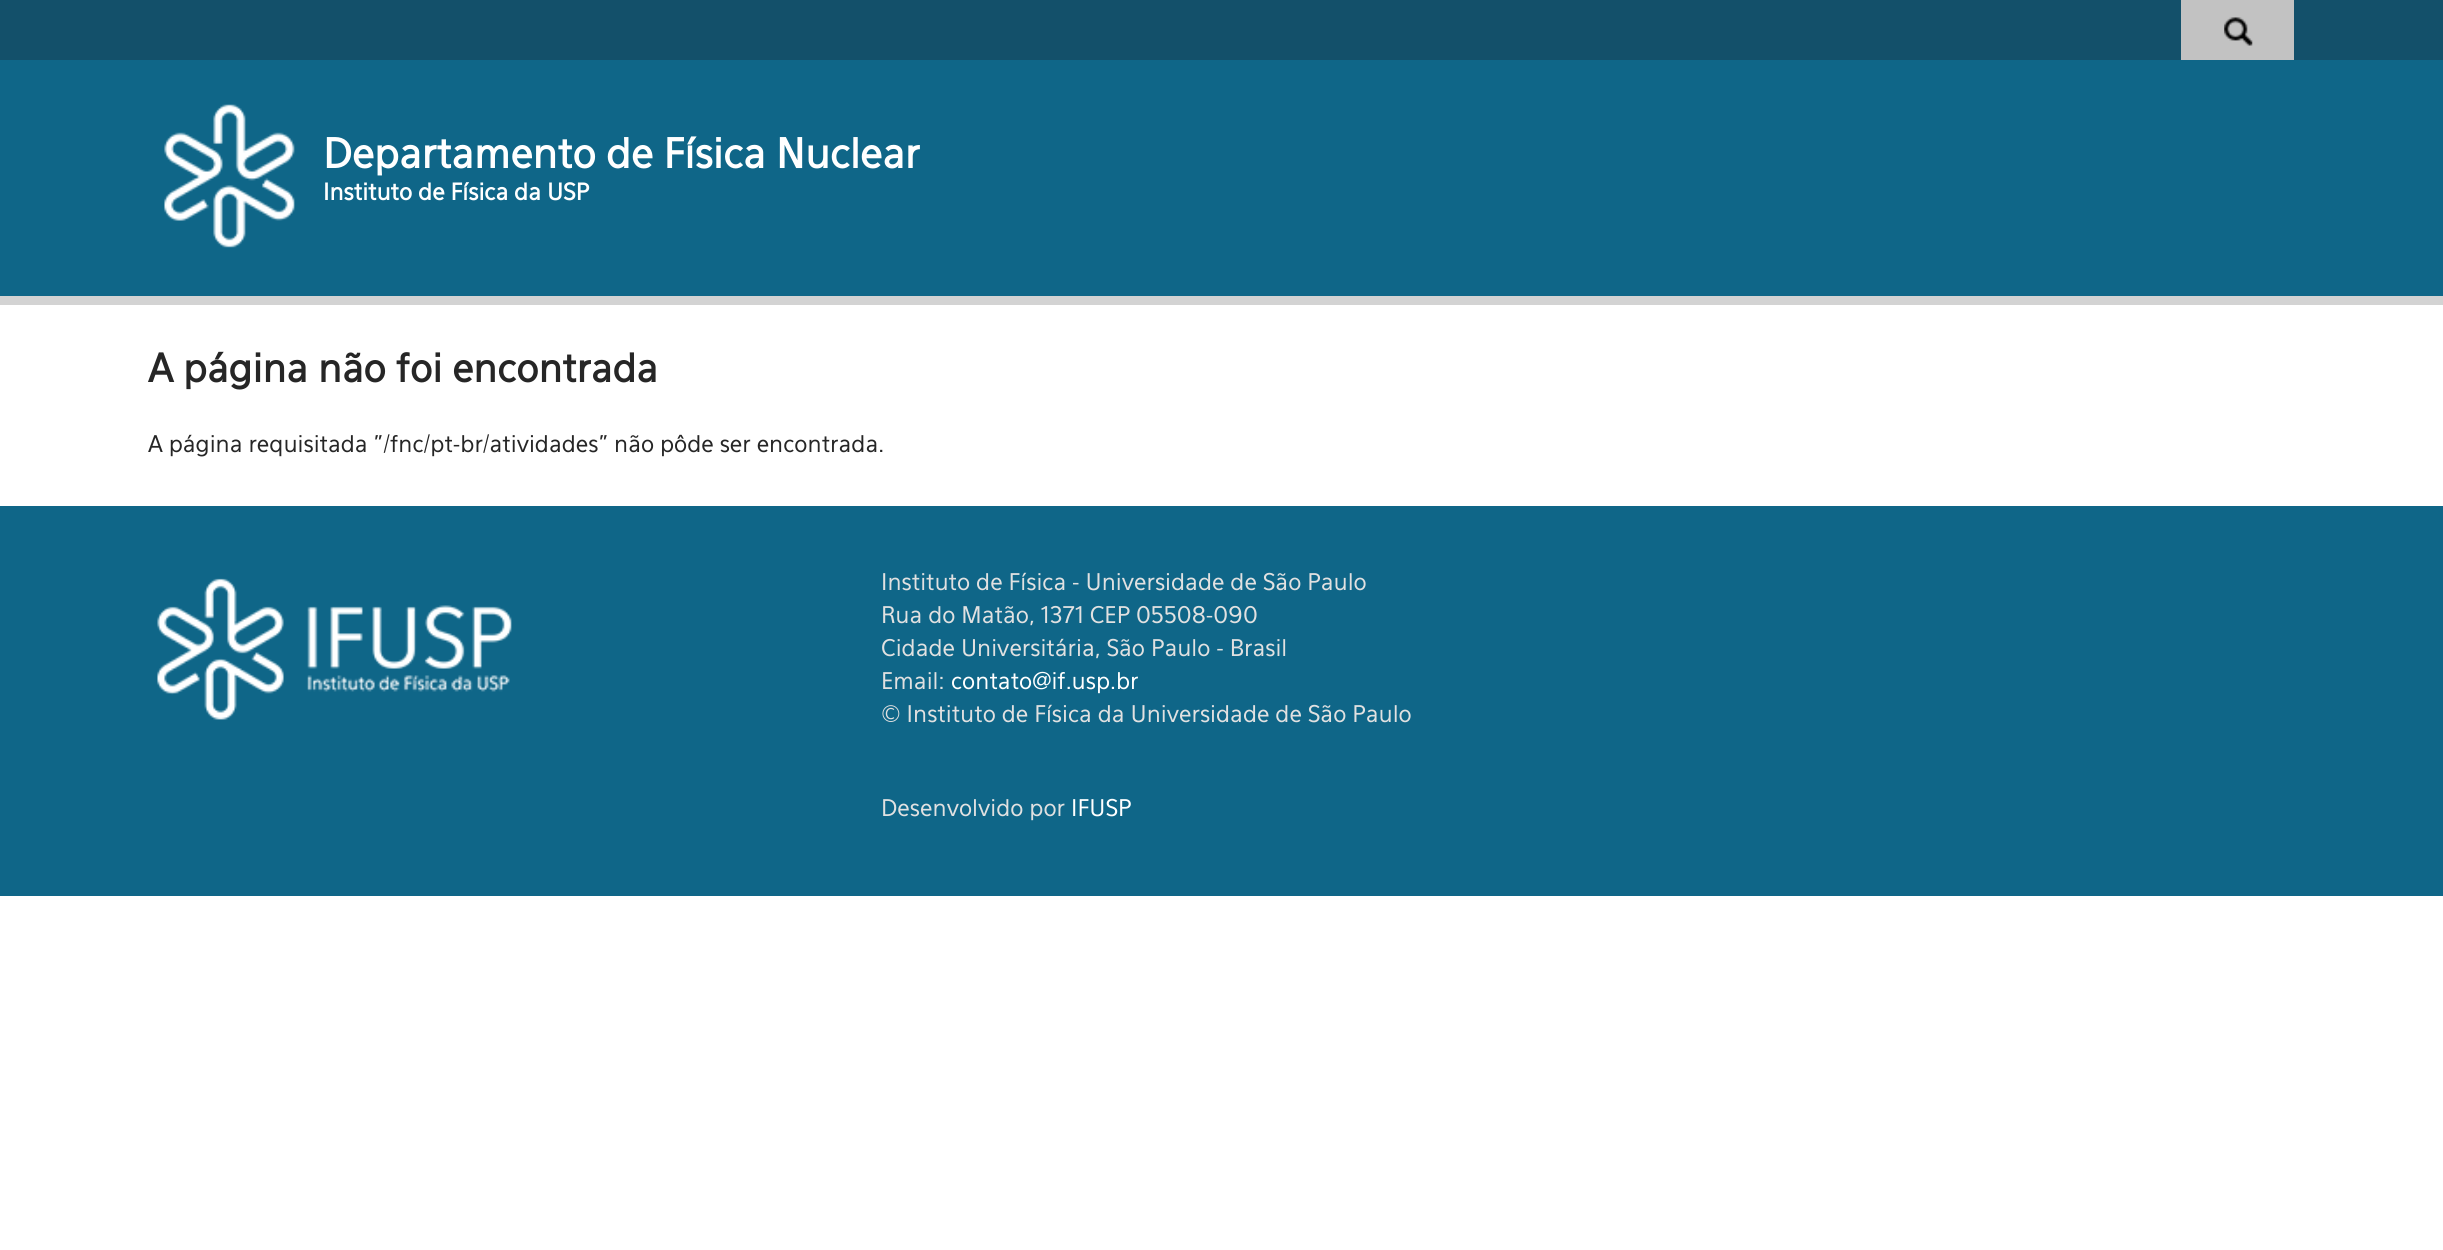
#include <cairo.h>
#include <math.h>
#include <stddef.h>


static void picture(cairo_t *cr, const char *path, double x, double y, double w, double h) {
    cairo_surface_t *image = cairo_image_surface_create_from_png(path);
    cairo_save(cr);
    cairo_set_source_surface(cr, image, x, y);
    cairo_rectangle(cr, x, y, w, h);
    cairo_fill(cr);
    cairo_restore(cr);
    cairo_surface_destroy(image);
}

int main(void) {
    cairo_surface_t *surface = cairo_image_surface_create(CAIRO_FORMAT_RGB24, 2443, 1250);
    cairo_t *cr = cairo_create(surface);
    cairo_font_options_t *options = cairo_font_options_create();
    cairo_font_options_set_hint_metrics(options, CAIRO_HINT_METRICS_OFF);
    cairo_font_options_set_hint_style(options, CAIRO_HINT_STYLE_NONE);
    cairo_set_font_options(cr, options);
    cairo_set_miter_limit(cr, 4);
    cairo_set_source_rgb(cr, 1, 1, 1);
    cairo_paint(cr);
    cairo_set_source_rgb(cr, 0.075, 0.314, 0.416);
    cairo_rectangle(cr, 0, 0, 2443, 60);
    cairo_fill(cr);
    cairo_set_source_rgb(cr, 0.761, 0.761, 0.761);
    cairo_rectangle(cr, 2181, 0, 113, 60);
    cairo_fill(cr);
    picture(cr, "img1.png", 2224, 17, 29, 29);
    cairo_set_source_rgb(cr, 0.059, 0.4, 0.533);
    cairo_rectangle(cr, 0, 60, 2443, 236);
    cairo_fill(cr);
    picture(cr, "img2.png", 164, 104, 131, 144);
    cairo_select_font_face(cr, "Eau", CAIRO_FONT_SLANT_NORMAL, CAIRO_FONT_WEIGHT_BOLD);
    cairo_set_font_size(cr, 40.25);
    cairo_set_source_rgb(cr, 1, 1, 1);
    cairo_move_to(cr, 323, 168);
    cairo_show_text(cr, "Departamento de Física Nuclear");
    cairo_set_font_size(cr, 22.75);
    cairo_move_to(cr, 323, 200);
    cairo_show_text(cr, "Instituto de Física da USP");
    cairo_set_source_rgb(cr, 0.827, 0.827, 0.827);
    cairo_rectangle(cr, 0, 296, 2443, 9);
    cairo_fill(cr);
    cairo_set_font_size(cr, 38.5);
    cairo_set_source_rgb(cr, 0.149, 0.149, 0.149);
    cairo_move_to(cr, 148, 382);
    cairo_show_text(cr, "A página não foi encontrada");
    cairo_select_font_face(cr, "Eau", CAIRO_FONT_SLANT_NORMAL, CAIRO_FONT_WEIGHT_NORMAL);
    cairo_set_font_size(cr, 22.75);
    cairo_move_to(cr, 148, 452);
    cairo_show_text(cr, "A página requisitada \"/fnc/pt-br/atividades\" não pôde ser encontrada.");
    cairo_set_source_rgb(cr, 0.059, 0.4, 0.533);
    cairo_rectangle(cr, 0, 506, 2443, 390);
    cairo_fill(cr);
    picture(cr, "img3.png", 157, 578, 355, 142);
    cairo_set_source_rgb(cr, 0.882, 0.882, 0.882);
    cairo_move_to(cr, 881, 590);
    cairo_show_text(cr, "Instituto de Física - Universidade de São Paulo");
    cairo_move_to(cr, 881, 623);
    cairo_show_text(cr, "Rua do Matão, 1371 CEP 05508-090");
    cairo_move_to(cr, 881, 656);
    cairo_show_text(cr, "Cidade Universitária, São Paulo - Brasil");
    cairo_move_to(cr, 881, 689);
    cairo_show_text(cr, "Email:");
    cairo_set_source_rgb(cr, 1, 1, 1);
    cairo_move_to(cr, 951, 689);
    cairo_show_text(cr, "contato@if.usp.br");
    cairo_set_source_rgb(cr, 0.882, 0.882, 0.882);
    cairo_move_to(cr, 881, 722);
    cairo_show_text(cr, "© Instituto de Física da Universidade de São Paulo");
    cairo_move_to(cr, 881, 816);
    cairo_show_text(cr, "Desenvolvido por");
    cairo_set_source_rgb(cr, 1, 1, 1);
    cairo_move_to(cr, 1071, 816);
    cairo_show_text(cr, "IFUSP");
    cairo_surface_write_to_png(surface, "page.png");
    cairo_font_options_destroy(options);
    cairo_destroy(cr);
    cairo_surface_destroy(surface);
    return 0;
}
